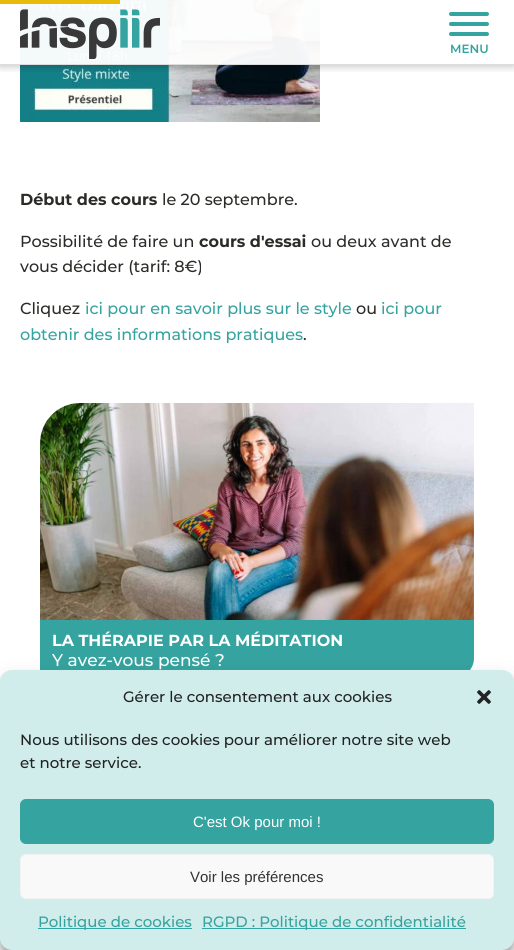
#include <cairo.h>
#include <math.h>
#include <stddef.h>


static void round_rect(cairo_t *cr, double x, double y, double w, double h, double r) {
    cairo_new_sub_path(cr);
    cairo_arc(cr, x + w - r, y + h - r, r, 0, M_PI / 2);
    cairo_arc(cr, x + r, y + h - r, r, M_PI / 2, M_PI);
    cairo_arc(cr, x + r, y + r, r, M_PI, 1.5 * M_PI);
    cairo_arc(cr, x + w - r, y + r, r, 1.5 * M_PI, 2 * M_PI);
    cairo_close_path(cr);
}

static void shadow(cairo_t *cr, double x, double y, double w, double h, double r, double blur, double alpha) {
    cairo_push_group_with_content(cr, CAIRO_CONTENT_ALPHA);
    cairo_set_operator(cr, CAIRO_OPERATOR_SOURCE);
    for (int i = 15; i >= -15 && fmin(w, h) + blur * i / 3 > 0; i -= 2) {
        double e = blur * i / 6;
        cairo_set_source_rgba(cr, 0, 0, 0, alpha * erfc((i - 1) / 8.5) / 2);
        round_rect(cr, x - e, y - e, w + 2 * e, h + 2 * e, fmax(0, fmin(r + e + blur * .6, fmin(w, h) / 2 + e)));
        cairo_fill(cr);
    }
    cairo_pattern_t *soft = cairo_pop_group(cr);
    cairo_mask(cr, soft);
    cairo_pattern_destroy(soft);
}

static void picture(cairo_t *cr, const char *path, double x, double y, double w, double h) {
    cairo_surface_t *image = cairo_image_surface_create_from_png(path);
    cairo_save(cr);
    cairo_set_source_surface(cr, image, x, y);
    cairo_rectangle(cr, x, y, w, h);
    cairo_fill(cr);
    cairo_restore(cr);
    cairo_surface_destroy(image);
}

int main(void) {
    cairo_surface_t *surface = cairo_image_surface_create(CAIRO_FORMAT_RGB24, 514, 950);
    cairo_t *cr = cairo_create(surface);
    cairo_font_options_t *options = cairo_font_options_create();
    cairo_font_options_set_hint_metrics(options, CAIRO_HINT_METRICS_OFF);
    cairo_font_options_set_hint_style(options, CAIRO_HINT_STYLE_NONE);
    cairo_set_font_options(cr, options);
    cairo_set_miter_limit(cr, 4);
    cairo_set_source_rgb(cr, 1, 1, 1);
    cairo_paint(cr);
    picture(cr, "img2.png", 20, 0, 300, 122);
    cairo_save(cr);
    cairo_rectangle(cr, 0, 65, 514, 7);
    cairo_clip(cr);
    cairo_set_source_rgb(cr, 0, 0, 0);
    shadow(cr, 0, 0, 514, 65, 0, 5, 0.3);
    cairo_restore(cr);
    cairo_set_source_rgba(cr, 1, 1, 1, 0.95);
    cairo_rectangle(cr, 20, 0, 300, 64);
    cairo_fill(cr);
    cairo_set_source_rgb(cr, 0.91, 0.733, 0.035);
    cairo_rectangle(cr, 0, 0, 120, 4);
    cairo_fill(cr);
    cairo_set_source_rgb(cr, 0.867, 0.867, 0.867);
    cairo_rectangle(cr, 0, 64, 514, 1);
    cairo_fill(cr);
    picture(cr, "img1.png", 20, 9, 140, 50);
    cairo_set_source_rgb(cr, 0.208, 0.639, 0.624);
    round_rect(cr, 449, 12, 40, 4, 2);
    cairo_fill(cr);
    round_rect(cr, 449, 22, 40, 4, 2);
    cairo_fill(cr);
    round_rect(cr, 449, 32, 40, 4, 2);
    cairo_fill(cr);
    cairo_select_font_face(cr, "Montserrat SemiBold", CAIRO_FONT_SLANT_NORMAL, CAIRO_FONT_WEIGHT_NORMAL);
    cairo_set_font_size(cr, 12);
    cairo_move_to(cr, 450, 53);
    cairo_show_text(cr, "MENU");
    cairo_select_font_face(cr, "Montserrat", CAIRO_FONT_SLANT_NORMAL, CAIRO_FONT_WEIGHT_BOLD);
    cairo_set_font_size(cr, 16);
    cairo_set_source_rgb(cr, 0.169, 0.173, 0.157);
    cairo_move_to(cr, 20, 205);
    cairo_show_text(cr, "Début des cours");
    cairo_select_font_face(cr, "Montserrat Medium", CAIRO_FONT_SLANT_NORMAL, CAIRO_FONT_WEIGHT_NORMAL);
    cairo_move_to(cr, 162, 205);
    cairo_show_text(cr, "le 20 septembre.");
    cairo_move_to(cr, 20, 247);
    cairo_show_text(cr, "Possibilité de faire un");
    cairo_select_font_face(cr, "Montserrat", CAIRO_FONT_SLANT_NORMAL, CAIRO_FONT_WEIGHT_BOLD);
    cairo_move_to(cr, 199, 247);
    cairo_show_text(cr, "cours d'essai");
    cairo_select_font_face(cr, "Montserrat Medium", CAIRO_FONT_SLANT_NORMAL, CAIRO_FONT_WEIGHT_NORMAL);
    cairo_move_to(cr, 311, 247);
    cairo_show_text(cr, "ou deux avant de");
    cairo_move_to(cr, 20, 272);
    cairo_show_text(cr, "vous décider (tarif: 8€)");
    cairo_move_to(cr, 20, 314);
    cairo_show_text(cr, "Cliquez");
    cairo_set_source_rgb(cr, 0.208, 0.639, 0.624);
    cairo_move_to(cr, 85, 314);
    cairo_show_text(cr, "ici pour en savoir plus sur le style");
    cairo_set_source_rgb(cr, 0.169, 0.173, 0.157);
    cairo_move_to(cr, 356, 314);
    cairo_show_text(cr, "ou");
    cairo_set_source_rgb(cr, 0.208, 0.639, 0.624);
    cairo_move_to(cr, 381, 314);
    cairo_show_text(cr, "ici pour");
    cairo_move_to(cr, 20, 340);
    cairo_show_text(cr, "obtenir des informations pratiques");
    cairo_set_source_rgb(cr, 0.169, 0.173, 0.157);
    cairo_move_to(cr, 303, 340);
    cairo_show_text(cr, ".");
    picture(cr, "img3.png", 40, 403, 434, 217);
    cairo_set_source_rgb(cr, 0.208, 0.639, 0.624);
    cairo_new_path(cr);
    cairo_move_to(cr, 40, 620);
    cairo_line_to(cr, 474, 620);
    cairo_line_to(cr, 474, 658);
    cairo_curve_to(cr, 474, 669, 465, 678, 454, 678);
    cairo_line_to(cr, 40, 678);
    cairo_close_path(cr);
    cairo_fill(cr);
    cairo_select_font_face(cr, "Montserrat", CAIRO_FONT_SLANT_NORMAL, CAIRO_FONT_WEIGHT_BOLD);
    cairo_set_source_rgb(cr, 1, 1, 1);
    cairo_move_to(cr, 52, 646);
    cairo_show_text(cr, "LA THÉRAPIE PAR LA MÉDITATION");
    cairo_select_font_face(cr, "Montserrat Medium", CAIRO_FONT_SLANT_NORMAL, CAIRO_FONT_WEIGHT_NORMAL);
    cairo_set_font_size(cr, 17);
    cairo_move_to(cr, 52, 666);
    cairo_show_text(cr, "Y avez-vous pensé ?");
    cairo_set_source_rgb(cr, 0, 0, 0);
    shadow(cr, 0, 676, 514, 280, 12, 3, 0.23);
    shadow(cr, 0, 680, 514, 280, 12, 10, 0.19);
    cairo_set_source_rgb(cr, 0.816, 0.929, 0.925);
    round_rect(cr, 0, 670, 514, 280, 12);
    cairo_fill(cr);
    cairo_set_font_size(cr, 15);
    cairo_set_source_rgb(cr, 0.133, 0.133, 0.133);
    cairo_move_to(cr, 123, 702);
    cairo_show_text(cr, "Gérer le consentement aux cookies");
    picture(cr, "img4.png", 477, 690, 14, 14);
    cairo_move_to(cr, 20, 745);
    cairo_show_text(cr, "Nous utilisons des cookies pour améliorer notre site web");
    cairo_move_to(cr, 20, 768);
    cairo_show_text(cr, "et notre service.");
    cairo_set_source_rgb(cr, 0.208, 0.639, 0.624);
    round_rect(cr, 20.5, 799.5, 473, 44, 5.5);
    cairo_fill_preserve(cr);
    cairo_set_line_width(cr, 1);
    cairo_stroke(cr);
    cairo_select_font_face(cr, "Liberation Sans", CAIRO_FONT_SLANT_NORMAL, CAIRO_FONT_WEIGHT_NORMAL);
    cairo_set_source_rgb(cr, 1, 1, 1);
    cairo_move_to(cr, 193, 827);
    cairo_show_text(cr, "C'est Ok pour moi !");
    cairo_set_source_rgb(cr, 0.976, 0.976, 0.976);
    round_rect(cr, 20.5, 854.5, 473, 44, 5.5);
    cairo_fill_preserve(cr);
    cairo_set_source_rgb(cr, 0.949, 0.949, 0.949);
    cairo_stroke(cr);
    cairo_set_source_rgb(cr, 0.2, 0.2, 0.2);
    cairo_move_to(cr, 190, 882);
    cairo_show_text(cr, "Voir les préférences");
    cairo_set_source_rgb(cr, 0.208, 0.639, 0.624);
    cairo_rectangle(cr, 38, 928, 154, 1);
    cairo_fill(cr);
    cairo_select_font_face(cr, "Montserrat Medium", CAIRO_FONT_SLANT_NORMAL, CAIRO_FONT_WEIGHT_NORMAL);
    cairo_move_to(cr, 38, 927);
    cairo_show_text(cr, "Politique de cookies");
    cairo_rectangle(cr, 202, 928, 264, 1);
    cairo_fill(cr);
    cairo_move_to(cr, 202, 927);
    cairo_show_text(cr, "RGPD : Politique de confidentialité");
    cairo_surface_write_to_png(surface, "page.png");
    cairo_font_options_destroy(options);
    cairo_destroy(cr);
    cairo_surface_destroy(surface);
    return 0;
}
